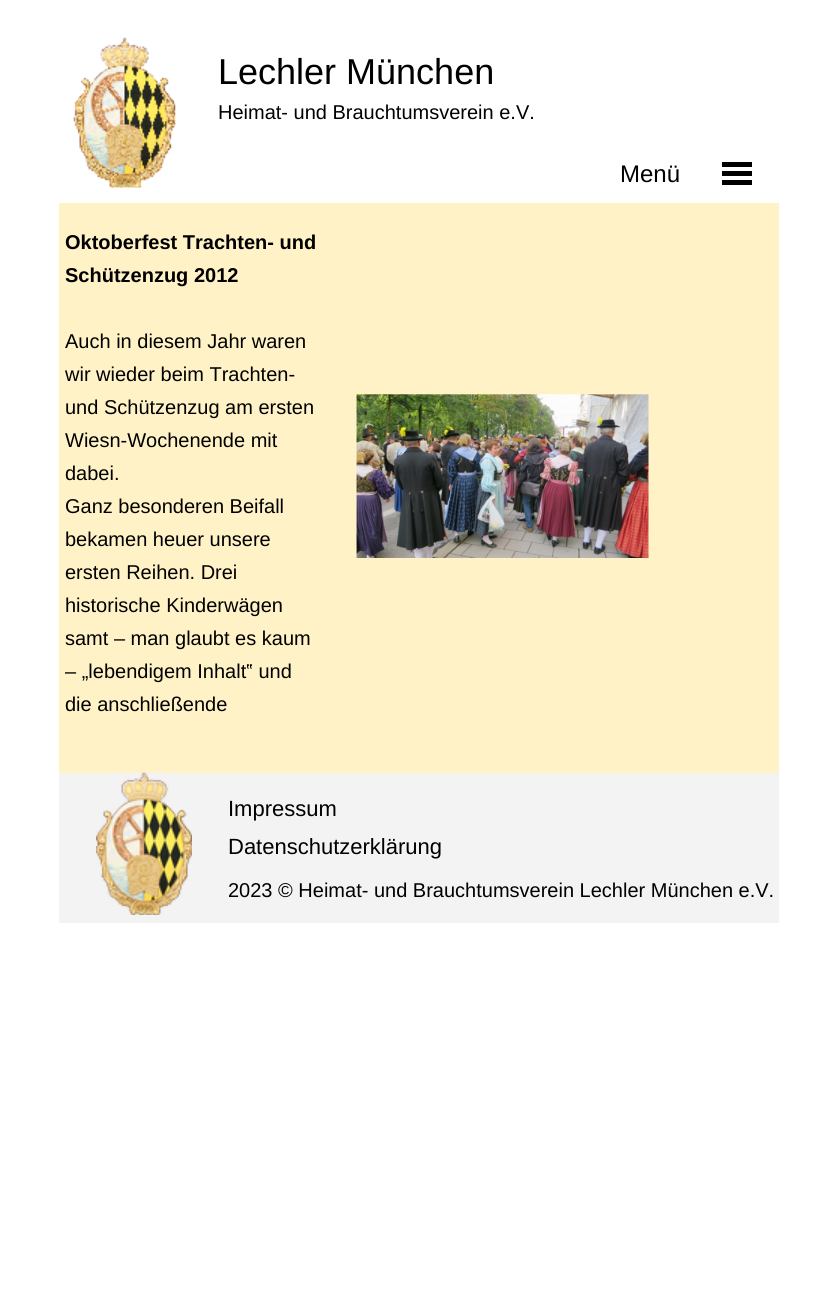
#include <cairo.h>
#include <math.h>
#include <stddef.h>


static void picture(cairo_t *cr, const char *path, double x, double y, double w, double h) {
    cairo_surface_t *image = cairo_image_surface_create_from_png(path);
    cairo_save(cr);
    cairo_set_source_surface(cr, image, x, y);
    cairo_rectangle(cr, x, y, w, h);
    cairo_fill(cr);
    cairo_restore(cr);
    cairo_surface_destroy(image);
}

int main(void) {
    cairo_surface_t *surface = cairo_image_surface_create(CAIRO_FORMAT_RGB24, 837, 1304);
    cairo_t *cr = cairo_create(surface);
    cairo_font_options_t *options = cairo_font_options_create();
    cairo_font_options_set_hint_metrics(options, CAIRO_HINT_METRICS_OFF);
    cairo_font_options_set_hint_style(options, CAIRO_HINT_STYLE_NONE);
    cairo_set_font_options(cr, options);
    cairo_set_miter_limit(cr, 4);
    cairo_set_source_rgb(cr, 1, 1, 1);
    cairo_paint(cr);
    picture(cr, "img1.png", 73, 37, 103, 151);
    cairo_select_font_face(cr, "Liberation Sans", CAIRO_FONT_SLANT_NORMAL, CAIRO_FONT_WEIGHT_NORMAL);
    cairo_set_font_size(cr, 36);
    cairo_set_source_rgb(cr, 0, 0, 0);
    cairo_move_to(cr, 218, 84);
    cairo_show_text(cr, "Lechler München");
    cairo_set_font_size(cr, 20);
    cairo_move_to(cr, 218, 119);
    cairo_show_text(cr, "Heimat- und Brauchtumsverein e.V.");
    cairo_set_font_size(cr, 24);
    cairo_move_to(cr, 620, 182);
    cairo_show_text(cr, "Menü");
    cairo_rectangle(cr, 722, 162, 30, 5);
    cairo_fill(cr);
    cairo_rectangle(cr, 722, 171, 30, 5);
    cairo_fill(cr);
    cairo_rectangle(cr, 722, 180, 30, 5);
    cairo_fill(cr);
    cairo_set_source_rgb(cr, 1, 0.949, 0.776);
    cairo_rectangle(cr, 59, 203, 720, 570);
    cairo_fill(cr);
    cairo_select_font_face(cr, "Liberation Sans", CAIRO_FONT_SLANT_NORMAL, CAIRO_FONT_WEIGHT_BOLD);
    cairo_set_font_size(cr, 20);
    cairo_set_source_rgb(cr, 0, 0, 0);
    cairo_move_to(cr, 65, 249);
    cairo_show_text(cr, "Oktoberfest Trachten- und");
    cairo_move_to(cr, 65, 282);
    cairo_show_text(cr, "Schützenzug 2012");
    cairo_select_font_face(cr, "Liberation Sans", CAIRO_FONT_SLANT_NORMAL, CAIRO_FONT_WEIGHT_NORMAL);
    cairo_move_to(cr, 65, 348);
    cairo_show_text(cr, "Auch in diesem Jahr waren");
    cairo_move_to(cr, 65, 381);
    cairo_show_text(cr, "wir wieder beim Trachten-");
    cairo_move_to(cr, 65, 414);
    cairo_show_text(cr, "und Schützenzug am ersten");
    cairo_move_to(cr, 65, 447);
    cairo_show_text(cr, "Wiesn-Wochenende mit");
    cairo_move_to(cr, 65, 480);
    cairo_show_text(cr, "dabei.");
    cairo_move_to(cr, 65, 513);
    cairo_show_text(cr, "Ganz besonderen Beifall");
    cairo_move_to(cr, 65, 546);
    cairo_show_text(cr, "bekamen heuer unsere");
    cairo_move_to(cr, 65, 579);
    cairo_show_text(cr, "ersten Reihen. Drei");
    cairo_move_to(cr, 65, 612);
    cairo_show_text(cr, "historische Kinderwägen");
    cairo_move_to(cr, 65, 645);
    cairo_show_text(cr, "samt – man glaubt es kaum");
    cairo_move_to(cr, 65, 678);
    cairo_show_text(cr, "– „lebendigem Inhalt‟ und");
    cairo_move_to(cr, 65, 711);
    cairo_show_text(cr, "die anschließende");
    picture(cr, "img2.png", 356, 394, 293, 164);
    cairo_set_source_rgb(cr, 0.953, 0.953, 0.953);
    cairo_rectangle(cr, 59, 773, 720, 150);
    cairo_fill(cr);
    picture(cr, "img3.png", 96, 772, 96, 143);
    cairo_set_font_size(cr, 22);
    cairo_set_source_rgb(cr, 0, 0, 0);
    cairo_move_to(cr, 228, 816);
    cairo_show_text(cr, "Impressum");
    cairo_move_to(cr, 228, 854);
    cairo_show_text(cr, "Datenschutzerklärung");
    cairo_set_font_size(cr, 20);
    cairo_move_to(cr, 228, 897);
    cairo_show_text(cr, "2023 © Heimat- und Brauchtumsverein Lechler München e.V.");
    cairo_surface_write_to_png(surface, "page.png");
    cairo_font_options_destroy(options);
    cairo_destroy(cr);
    cairo_surface_destroy(surface);
    return 0;
}
